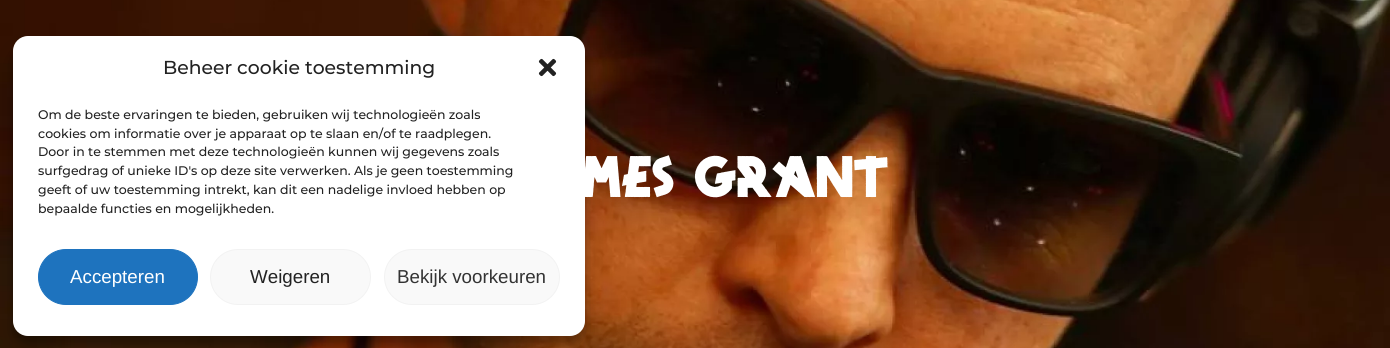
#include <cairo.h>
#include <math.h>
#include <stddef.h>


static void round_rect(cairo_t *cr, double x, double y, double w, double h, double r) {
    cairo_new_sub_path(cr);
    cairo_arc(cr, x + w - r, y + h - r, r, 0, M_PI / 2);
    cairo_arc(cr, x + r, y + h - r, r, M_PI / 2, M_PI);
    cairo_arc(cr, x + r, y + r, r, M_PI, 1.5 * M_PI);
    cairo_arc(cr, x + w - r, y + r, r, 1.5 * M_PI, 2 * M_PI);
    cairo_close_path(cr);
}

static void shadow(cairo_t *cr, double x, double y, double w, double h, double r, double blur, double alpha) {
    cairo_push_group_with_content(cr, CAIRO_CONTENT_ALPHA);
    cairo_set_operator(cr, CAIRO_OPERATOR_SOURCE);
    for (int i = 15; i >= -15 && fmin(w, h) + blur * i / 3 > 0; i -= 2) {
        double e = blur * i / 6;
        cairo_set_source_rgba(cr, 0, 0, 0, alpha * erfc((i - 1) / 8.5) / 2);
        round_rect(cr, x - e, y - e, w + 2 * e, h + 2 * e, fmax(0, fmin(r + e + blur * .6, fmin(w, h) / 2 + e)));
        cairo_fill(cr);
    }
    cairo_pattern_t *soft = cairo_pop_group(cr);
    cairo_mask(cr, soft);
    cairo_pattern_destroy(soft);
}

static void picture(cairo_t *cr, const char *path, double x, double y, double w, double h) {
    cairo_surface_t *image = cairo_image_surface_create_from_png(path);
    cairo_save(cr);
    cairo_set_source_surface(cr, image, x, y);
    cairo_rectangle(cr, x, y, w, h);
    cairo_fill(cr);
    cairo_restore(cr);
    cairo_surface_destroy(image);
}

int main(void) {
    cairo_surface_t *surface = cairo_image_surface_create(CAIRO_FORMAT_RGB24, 1390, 348);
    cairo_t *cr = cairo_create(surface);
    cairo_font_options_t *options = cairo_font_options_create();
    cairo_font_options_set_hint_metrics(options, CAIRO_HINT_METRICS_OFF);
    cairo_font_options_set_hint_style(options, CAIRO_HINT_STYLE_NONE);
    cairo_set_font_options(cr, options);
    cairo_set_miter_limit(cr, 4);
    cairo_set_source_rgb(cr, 1, 1, 1);
    cairo_paint(cr);
    picture(cr, "img2.png", 0, 0, 1390, 348);
    cairo_set_source_rgb(cr, 0, 0, 0);
    shadow(cr, 13, 44, 572, 300, 15, 4, 0.23);
    shadow(cr, 13, 49, 572, 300, 15, 12.5, 0.19);
    cairo_set_source_rgb(cr, 1, 1, 1);
    round_rect(cr, 13, 36, 572, 300, 15);
    cairo_fill(cr);
    cairo_select_font_face(cr, "Montserrat Medium", CAIRO_FONT_SLANT_NORMAL, CAIRO_FONT_WEIGHT_NORMAL);
    cairo_set_font_size(cr, 18.75);
    cairo_set_source_rgb(cr, 0.133, 0.133, 0.133);
    cairo_move_to(cr, 163, 74);
    cairo_show_text(cr, "Beheer cookie toestemming");
    picture(cr, "img1.png", 538, 58, 19, 19);
    cairo_set_font_size(cr, 12.5);
    cairo_move_to(cr, 38, 119);
    cairo_show_text(cr, "Om de beste ervaringen te bieden, gebruiken wij technologieën zoals");
    cairo_move_to(cr, 38, 138);
    cairo_show_text(cr, "cookies om informatie over je apparaat op te slaan en/of te raadplegen.");
    cairo_move_to(cr, 38, 156);
    cairo_show_text(cr, "Door in te stemmen met deze technologieën kunnen wij gegevens zoals");
    cairo_move_to(cr, 38, 175);
    cairo_show_text(cr, "surfgedrag of unieke ID's op deze site verwerken. Als je geen toestemming");
    cairo_move_to(cr, 38, 194);
    cairo_show_text(cr, "geeft of uw toestemming intrekt, kan dit een nadelige invloed hebben op");
    cairo_move_to(cr, 38, 213);
    cairo_show_text(cr, "bepaalde functies en mogelijkheden.");
    cairo_set_source_rgb(cr, 0.118, 0.451, 0.745);
    round_rect(cr, 38.5, 249.5, 159, 55, 27.5);
    cairo_fill_preserve(cr);
    cairo_set_line_width(cr, 1);
    cairo_stroke(cr);
    cairo_select_font_face(cr, "Liberation Sans", CAIRO_FONT_SLANT_NORMAL, CAIRO_FONT_WEIGHT_NORMAL);
    cairo_set_font_size(cr, 18.75);
    cairo_set_source_rgb(cr, 1, 1, 1);
    cairo_move_to(cr, 70, 283);
    cairo_show_text(cr, "Accepteren");
    cairo_set_source_rgb(cr, 0.976, 0.976, 0.976);
    round_rect(cr, 210.5, 249.5, 160, 55, 27.5);
    cairo_fill_preserve(cr);
    cairo_set_source_rgb(cr, 0.949, 0.949, 0.949);
    cairo_stroke(cr);
    cairo_set_source_rgb(cr, 0.133, 0.133, 0.133);
    cairo_move_to(cr, 250, 283);
    cairo_show_text(cr, "Weigeren");
    cairo_set_source_rgb(cr, 0.976, 0.976, 0.976);
    round_rect(cr, 384.5, 249.5, 175, 55, 27.5);
    cairo_fill_preserve(cr);
    cairo_set_source_rgb(cr, 0.949, 0.949, 0.949);
    cairo_stroke(cr);
    cairo_set_source_rgb(cr, 0.2, 0.2, 0.2);
    cairo_move_to(cr, 397, 283);
    cairo_show_text(cr, "Bekijk voorkeuren");
    cairo_select_font_face(cr, "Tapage", CAIRO_FONT_SLANT_NORMAL, CAIRO_FONT_WEIGHT_BOLD);
    cairo_set_font_size(cr, 56.25);
    cairo_set_source_rgb(cr, 1, 1, 1);
    cairo_move_to(cr, 581, 197);
    cairo_show_text(cr, "mes Grant");
    cairo_surface_write_to_png(surface, "page.png");
    cairo_font_options_destroy(options);
    cairo_destroy(cr);
    cairo_surface_destroy(surface);
    return 0;
}
